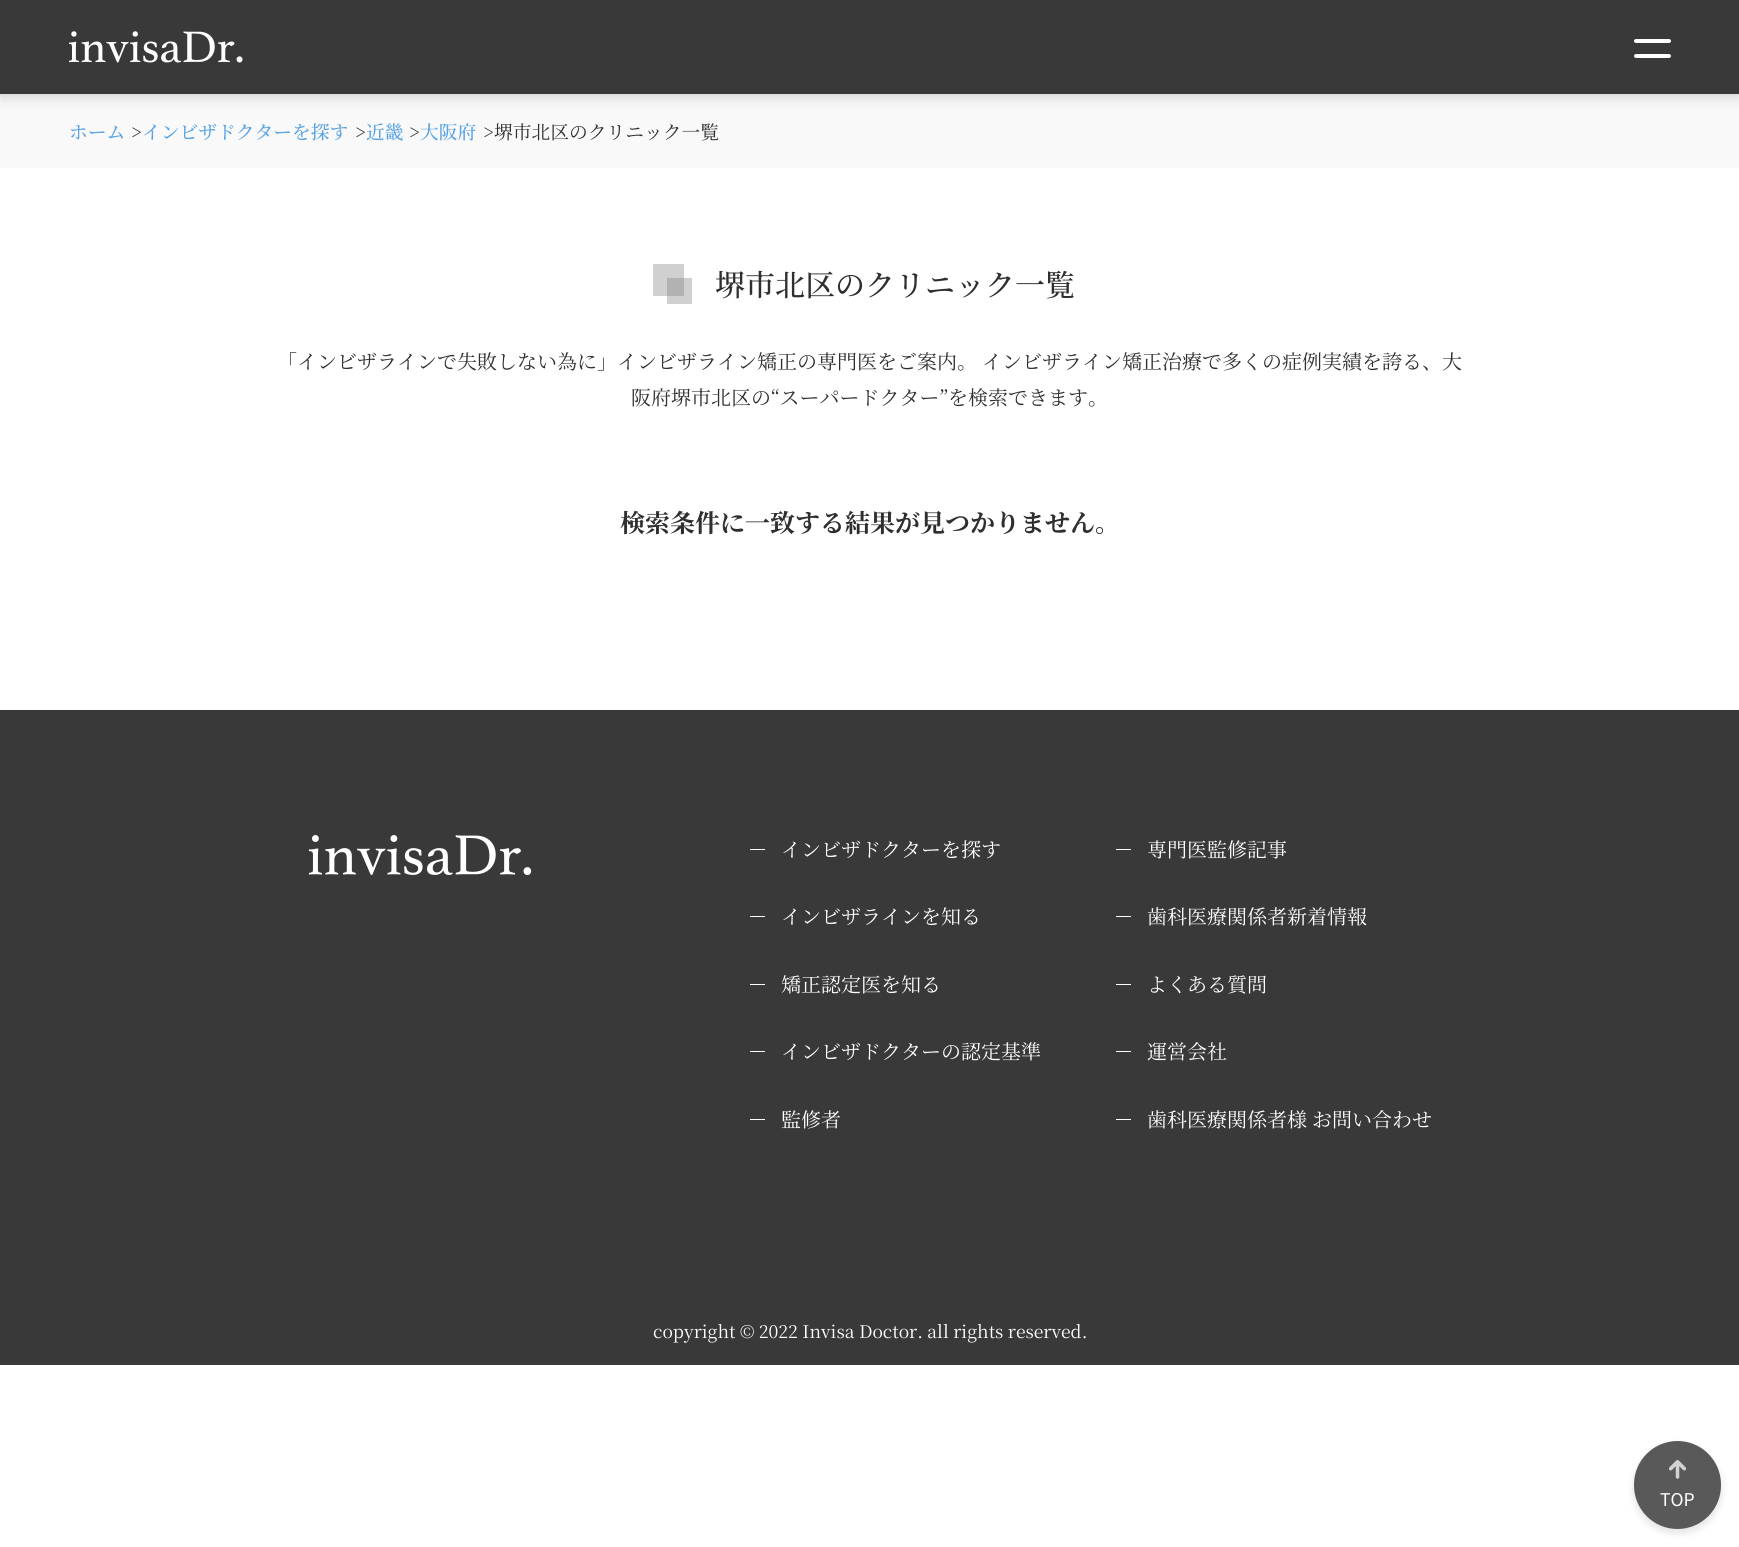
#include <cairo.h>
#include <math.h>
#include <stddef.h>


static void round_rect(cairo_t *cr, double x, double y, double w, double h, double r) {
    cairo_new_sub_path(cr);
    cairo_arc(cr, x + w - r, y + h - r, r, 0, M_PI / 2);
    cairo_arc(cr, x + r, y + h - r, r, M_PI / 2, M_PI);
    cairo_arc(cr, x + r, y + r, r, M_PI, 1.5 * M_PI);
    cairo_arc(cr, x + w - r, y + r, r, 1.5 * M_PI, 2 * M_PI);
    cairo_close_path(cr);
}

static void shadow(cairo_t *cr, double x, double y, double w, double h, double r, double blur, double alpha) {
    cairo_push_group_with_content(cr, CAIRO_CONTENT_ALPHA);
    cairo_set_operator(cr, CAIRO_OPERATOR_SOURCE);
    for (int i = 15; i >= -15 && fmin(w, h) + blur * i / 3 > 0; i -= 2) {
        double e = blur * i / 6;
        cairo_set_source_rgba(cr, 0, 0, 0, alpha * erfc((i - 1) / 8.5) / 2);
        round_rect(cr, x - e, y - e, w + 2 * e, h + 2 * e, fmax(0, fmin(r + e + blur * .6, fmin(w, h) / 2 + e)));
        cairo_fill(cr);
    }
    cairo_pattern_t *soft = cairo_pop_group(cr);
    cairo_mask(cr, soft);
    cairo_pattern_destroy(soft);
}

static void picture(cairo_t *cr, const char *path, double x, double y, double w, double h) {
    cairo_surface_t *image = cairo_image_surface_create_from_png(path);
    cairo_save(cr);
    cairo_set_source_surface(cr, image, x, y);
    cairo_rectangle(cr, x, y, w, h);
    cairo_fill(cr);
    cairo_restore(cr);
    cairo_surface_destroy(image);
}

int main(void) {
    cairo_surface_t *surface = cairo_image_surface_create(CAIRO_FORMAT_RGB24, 1739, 1547);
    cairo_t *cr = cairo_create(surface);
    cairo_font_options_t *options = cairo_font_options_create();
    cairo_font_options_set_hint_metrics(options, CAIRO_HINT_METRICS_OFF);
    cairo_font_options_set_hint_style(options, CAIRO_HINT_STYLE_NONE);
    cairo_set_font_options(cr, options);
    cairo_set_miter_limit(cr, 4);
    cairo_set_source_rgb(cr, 1, 1, 1);
    cairo_paint(cr);
    cairo_set_source_rgb(cr, 0.816, 0.816, 0.816);
    cairo_rectangle(cr, 653, 264, 31, 32);
    cairo_fill(cr);
    cairo_set_source_rgb(cr, 0.973, 0.973, 0.973);
    cairo_rectangle(cr, 0, 94, 1739, 74);
    cairo_fill(cr);
    cairo_set_source_rgb(cr, 0.322, 0.322, 0.322);
    shadow(cr, 0, 3, 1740, 93, 0, 7.5, 0.26);
    cairo_set_source_rgb(cr, 0.224, 0.224, 0.224);
    cairo_rectangle(cr, 0, 0, 1739, 94);
    cairo_fill(cr);
    picture(cr, "img1.png", 69, 31, 174, 32);
    cairo_set_source_rgb(cr, 1, 1, 1);
    round_rect(cr, 1634, 39, 37, 4, 2);
    cairo_fill(cr);
    round_rect(cr, 1634, 54, 37, 4, 2);
    cairo_fill(cr);
    cairo_select_font_face(cr, "Noto Serif JP Medium", CAIRO_FONT_SLANT_NORMAL, CAIRO_FONT_WEIGHT_NORMAL);
    cairo_set_font_size(cr, 18.75);
    cairo_set_source_rgb(cr, 0.353, 0.643, 0.894);
    cairo_move_to(cr, 69, 139);
    cairo_show_text(cr, "ホーム");
    cairo_select_font_face(cr, "Noto Serif JP", CAIRO_FONT_SLANT_NORMAL, CAIRO_FONT_WEIGHT_NORMAL);
    cairo_set_source_rgb(cr, 0.184, 0.184, 0.184);
    cairo_move_to(cr, 131, 139);
    cairo_show_text(cr, ">");
    cairo_select_font_face(cr, "Noto Serif JP Medium", CAIRO_FONT_SLANT_NORMAL, CAIRO_FONT_WEIGHT_NORMAL);
    cairo_set_source_rgb(cr, 0.353, 0.643, 0.894);
    cairo_move_to(cr, 142, 139);
    cairo_show_text(cr, "インビザドクターを探す");
    cairo_select_font_face(cr, "Noto Serif JP", CAIRO_FONT_SLANT_NORMAL, CAIRO_FONT_WEIGHT_NORMAL);
    cairo_set_source_rgb(cr, 0.184, 0.184, 0.184);
    cairo_move_to(cr, 355, 139);
    cairo_show_text(cr, ">");
    cairo_select_font_face(cr, "Noto Serif JP Medium", CAIRO_FONT_SLANT_NORMAL, CAIRO_FONT_WEIGHT_NORMAL);
    cairo_set_source_rgb(cr, 0.353, 0.643, 0.894);
    cairo_move_to(cr, 366, 139);
    cairo_show_text(cr, "近畿");
    cairo_select_font_face(cr, "Noto Serif JP", CAIRO_FONT_SLANT_NORMAL, CAIRO_FONT_WEIGHT_NORMAL);
    cairo_set_source_rgb(cr, 0.184, 0.184, 0.184);
    cairo_move_to(cr, 409, 139);
    cairo_show_text(cr, ">");
    cairo_select_font_face(cr, "Noto Serif JP Medium", CAIRO_FONT_SLANT_NORMAL, CAIRO_FONT_WEIGHT_NORMAL);
    cairo_set_source_rgb(cr, 0.353, 0.643, 0.894);
    cairo_move_to(cr, 420, 139);
    cairo_show_text(cr, "大阪府");
    cairo_select_font_face(cr, "Noto Serif JP", CAIRO_FONT_SLANT_NORMAL, CAIRO_FONT_WEIGHT_NORMAL);
    cairo_set_source_rgb(cr, 0.184, 0.184, 0.184);
    cairo_move_to(cr, 483, 139);
    cairo_show_text(cr, ">堺市北区のクリニック一覧");
    cairo_set_source_rgb(cr, 0.816, 0.816, 0.816);
    cairo_rectangle(cr, 667, 278, 25, 26);
    cairo_fill(cr);
    cairo_set_source_rgb(cr, 0.698, 0.698, 0.698);
    cairo_rectangle(cr, 667, 278, 17, 18);
    cairo_fill(cr);
    cairo_select_font_face(cr, "Noto Serif JP Medium", CAIRO_FONT_SLANT_NORMAL, CAIRO_FONT_WEIGHT_NORMAL);
    cairo_set_font_size(cr, 30);
    cairo_set_source_rgb(cr, 0.184, 0.184, 0.184);
    cairo_move_to(cr, 715, 296);
    cairo_show_text(cr, "堺市北区のクリニック一覧");
    cairo_select_font_face(cr, "Noto Serif JP", CAIRO_FONT_SLANT_NORMAL, CAIRO_FONT_WEIGHT_NORMAL);
    cairo_set_font_size(cr, 20);
    cairo_move_to(cr, 277, 369);
    cairo_show_text(cr, "「インビザラインで失敗しない為に」インビザライン矯正の専門医をご案内。 インビザライン矯正治療で多くの症例実績を誇る、大");
    cairo_move_to(cr, 631, 405);
    cairo_show_text(cr, "阪府堺市北区の“スーパードクター”を検索できます。");
    cairo_select_font_face(cr, "Noto Serif JP", CAIRO_FONT_SLANT_NORMAL, CAIRO_FONT_WEIGHT_BOLD);
    cairo_set_font_size(cr, 25);
    cairo_move_to(cr, 620, 532);
    cairo_show_text(cr, "検索条件に一致する結果が見つかりません。");
    cairo_set_source_rgb(cr, 0.224, 0.224, 0.224);
    cairo_rectangle(cr, 0, 710, 1739, 655);
    cairo_fill(cr);
    picture(cr, "img2.png", 308, 835, 224, 40);
    cairo_set_source_rgb(cr, 1, 1, 1);
    cairo_rectangle(cr, 750, 849, 15, 1);
    cairo_fill(cr);
    cairo_select_font_face(cr, "Noto Serif JP", CAIRO_FONT_SLANT_NORMAL, CAIRO_FONT_WEIGHT_NORMAL);
    cairo_set_font_size(cr, 20);
    cairo_move_to(cr, 781, 857);
    cairo_show_text(cr, "インビザドクターを探す");
    cairo_rectangle(cr, 750, 916, 15, 1);
    cairo_fill(cr);
    cairo_move_to(cr, 781, 924);
    cairo_show_text(cr, "インビザラインを知る");
    cairo_rectangle(cr, 750, 984, 15, 1);
    cairo_fill(cr);
    cairo_move_to(cr, 781, 992);
    cairo_show_text(cr, "矯正認定医を知る");
    cairo_rectangle(cr, 750, 1051, 15, 1);
    cairo_fill(cr);
    cairo_move_to(cr, 781, 1059);
    cairo_show_text(cr, "インビザドクターの認定基準");
    cairo_rectangle(cr, 750, 1119, 15, 1);
    cairo_fill(cr);
    cairo_move_to(cr, 781, 1127);
    cairo_show_text(cr, "監修者");
    cairo_rectangle(cr, 1116, 849, 15, 1);
    cairo_fill(cr);
    cairo_move_to(cr, 1147, 857);
    cairo_show_text(cr, "専門医監修記事");
    cairo_rectangle(cr, 1116, 916, 15, 1);
    cairo_fill(cr);
    cairo_move_to(cr, 1147, 924);
    cairo_show_text(cr, "歯科医療関係者新着情報");
    cairo_rectangle(cr, 1116, 984, 15, 1);
    cairo_fill(cr);
    cairo_move_to(cr, 1147, 992);
    cairo_show_text(cr, "よくある質問");
    cairo_rectangle(cr, 1116, 1051, 15, 1);
    cairo_fill(cr);
    cairo_move_to(cr, 1147, 1059);
    cairo_show_text(cr, "運営会社");
    cairo_rectangle(cr, 1116, 1119, 15, 1);
    cairo_fill(cr);
    cairo_move_to(cr, 1147, 1127);
    cairo_show_text(cr, "歯科医療関係者様 お問い合わせ");
    cairo_set_font_size(cr, 17.5);
    cairo_move_to(cr, 653, 1338);
    cairo_show_text(cr, "copyright © 2022 Invisa Doctor. all rights reserved.");
    cairo_set_source_rgb(cr, 0.271, 0.271, 0.271);
    shadow(cr, 1634, 1445, 87, 88, 43.5, 4, 0.16);
    cairo_set_source_rgb(cr, 0.349, 0.349, 0.349);
    round_rect(cr, 1634, 1441, 87, 88, 43.5);
    cairo_fill(cr);
    picture(cr, "img3.png", 1669, 1460, 17, 19);
    cairo_select_font_face(cr, "Noto Sans JP", CAIRO_FONT_SLANT_NORMAL, CAIRO_FONT_WEIGHT_NORMAL);
    cairo_set_source_rgb(cr, 1, 1, 1);
    cairo_move_to(cr, 1660, 1506);
    cairo_show_text(cr, "TOP");
    cairo_surface_write_to_png(surface, "page.png");
    cairo_font_options_destroy(options);
    cairo_destroy(cr);
    cairo_surface_destroy(surface);
    return 0;
}
